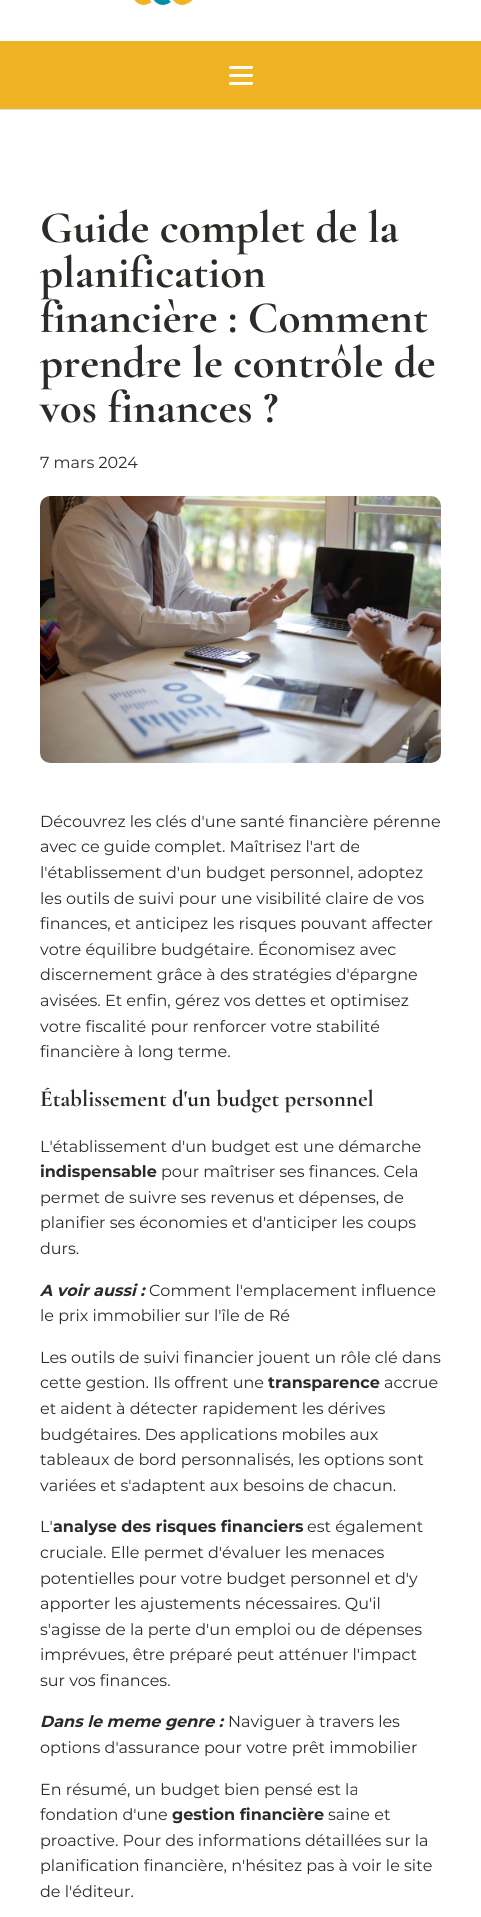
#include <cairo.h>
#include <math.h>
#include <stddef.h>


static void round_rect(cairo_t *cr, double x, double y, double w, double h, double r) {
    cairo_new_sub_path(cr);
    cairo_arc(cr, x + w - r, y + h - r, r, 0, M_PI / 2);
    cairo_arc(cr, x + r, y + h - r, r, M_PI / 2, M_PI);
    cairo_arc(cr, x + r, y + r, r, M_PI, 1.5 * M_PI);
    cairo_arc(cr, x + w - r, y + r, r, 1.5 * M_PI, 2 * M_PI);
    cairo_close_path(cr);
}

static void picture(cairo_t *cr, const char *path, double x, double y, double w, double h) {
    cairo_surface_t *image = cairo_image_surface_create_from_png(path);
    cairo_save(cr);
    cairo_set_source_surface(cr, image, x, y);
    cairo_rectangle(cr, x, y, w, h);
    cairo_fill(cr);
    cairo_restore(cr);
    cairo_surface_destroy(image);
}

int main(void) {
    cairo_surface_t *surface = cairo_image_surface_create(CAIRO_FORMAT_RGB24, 481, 1917);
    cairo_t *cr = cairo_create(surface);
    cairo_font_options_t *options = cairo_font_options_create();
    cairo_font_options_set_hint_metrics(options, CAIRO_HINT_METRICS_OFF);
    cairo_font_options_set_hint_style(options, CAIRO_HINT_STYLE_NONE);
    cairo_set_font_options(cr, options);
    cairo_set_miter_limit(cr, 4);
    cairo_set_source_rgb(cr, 1, 1, 1);
    cairo_paint(cr);
    picture(cr, "img1.png", 134, 0, 59, 5);
    cairo_set_source_rgb(cr, 0.941, 0.702, 0.137);
    cairo_rectangle(cr, 0, 41, 481, 68);
    cairo_fill(cr);
    cairo_set_source_rgb(cr, 0.867, 0.867, 0.867);
    cairo_rectangle(cr, 0, 109, 481, 1);
    cairo_fill(cr);
    cairo_set_source_rgb(cr, 1, 1, 1);
    round_rect(cr, 229, 66, 24, 3, 1.5);
    cairo_fill(cr);
    round_rect(cr, 229, 74, 24, 3, 1.5);
    cairo_fill(cr);
    round_rect(cr, 229, 82, 24, 3, 1.5);
    cairo_fill(cr);
    cairo_select_font_face(cr, "Cormorant Garamond", CAIRO_FONT_SLANT_NORMAL, CAIRO_FONT_WEIGHT_BOLD);
    cairo_set_font_size(cr, 45);
    cairo_set_source_rgb(cr, 0.169, 0.173, 0.157);
    cairo_move_to(cr, 40, 242);
    cairo_show_text(cr, "Guide complet de la");
    cairo_move_to(cr, 40, 287);
    cairo_show_text(cr, "planification");
    cairo_move_to(cr, 40, 332);
    cairo_show_text(cr, "financière : Comment");
    cairo_move_to(cr, 40, 377);
    cairo_show_text(cr, "prendre le contrôle de");
    cairo_move_to(cr, 40, 422);
    cairo_show_text(cr, "vos finances ?");
    cairo_select_font_face(cr, "Montserrat", CAIRO_FONT_SLANT_NORMAL, CAIRO_FONT_WEIGHT_NORMAL);
    cairo_set_font_size(cr, 16);
    cairo_move_to(cr, 40, 468);
    cairo_show_text(cr, "7 mars 2024");
    picture(cr, "img2.png", 40, 496, 401, 267);
    cairo_move_to(cr, 40, 827);
    cairo_show_text(cr, "Découvrez les clés d'une santé financière pérenne");
    cairo_move_to(cr, 40, 852);
    cairo_show_text(cr, "avec ce guide complet. Maîtrisez l'art de");
    cairo_move_to(cr, 40, 878);
    cairo_show_text(cr, "l'établissement d'un budget personnel, adoptez");
    cairo_move_to(cr, 40, 904);
    cairo_show_text(cr, "les outils de suivi pour une visibilité claire de vos");
    cairo_move_to(cr, 40, 929);
    cairo_show_text(cr, "finances, et anticipez les risques pouvant affecter");
    cairo_move_to(cr, 40, 955);
    cairo_show_text(cr, "votre équilibre budgétaire. Économisez avec");
    cairo_move_to(cr, 40, 980);
    cairo_show_text(cr, "discernement grâce à des stratégies d'épargne");
    cairo_move_to(cr, 40, 1006);
    cairo_show_text(cr, "avisées. Et enfin, gérez vos dettes et optimisez");
    cairo_move_to(cr, 40, 1032);
    cairo_show_text(cr, "votre fiscalité pour renforcer votre stabilité");
    cairo_move_to(cr, 40, 1057);
    cairo_show_text(cr, "financière à long terme.");
    cairo_select_font_face(cr, "Cormorant Garamond", CAIRO_FONT_SLANT_NORMAL, CAIRO_FONT_WEIGHT_BOLD);
    cairo_set_font_size(cr, 23);
    cairo_move_to(cr, 40, 1106);
    cairo_show_text(cr, "Établissement d'un budget personnel");
    cairo_select_font_face(cr, "Montserrat", CAIRO_FONT_SLANT_NORMAL, CAIRO_FONT_WEIGHT_NORMAL);
    cairo_set_font_size(cr, 16);
    cairo_move_to(cr, 40, 1152);
    cairo_show_text(cr, "L'établissement d'un budget est une démarche");
    cairo_select_font_face(cr, "Montserrat", CAIRO_FONT_SLANT_NORMAL, CAIRO_FONT_WEIGHT_BOLD);
    cairo_move_to(cr, 40, 1177);
    cairo_show_text(cr, "indispensable");
    cairo_select_font_face(cr, "Montserrat", CAIRO_FONT_SLANT_NORMAL, CAIRO_FONT_WEIGHT_NORMAL);
    cairo_move_to(cr, 161, 1177);
    cairo_show_text(cr, "pour maîtriser ses finances. Cela");
    cairo_move_to(cr, 40, 1203);
    cairo_show_text(cr, "permet de suivre ses revenus et dépenses, de");
    cairo_move_to(cr, 40, 1228);
    cairo_show_text(cr, "planifier ses économies et d'anticiper les coups");
    cairo_move_to(cr, 40, 1254);
    cairo_show_text(cr, "durs.");
    cairo_select_font_face(cr, "Montserrat", CAIRO_FONT_SLANT_ITALIC, CAIRO_FONT_WEIGHT_BOLD);
    cairo_move_to(cr, 40, 1296);
    cairo_show_text(cr, "A voir aussi :");
    cairo_select_font_face(cr, "Montserrat", CAIRO_FONT_SLANT_NORMAL, CAIRO_FONT_WEIGHT_NORMAL);
    cairo_move_to(cr, 149, 1296);
    cairo_show_text(cr, "Comment l'emplacement influence");
    cairo_move_to(cr, 40, 1321);
    cairo_show_text(cr, "le prix immobilier sur l'île de Ré");
    cairo_move_to(cr, 40, 1363);
    cairo_show_text(cr, "Les outils de suivi financier jouent un rôle clé dans");
    cairo_move_to(cr, 40, 1388);
    cairo_show_text(cr, "cette gestion. Ils offrent une");
    cairo_select_font_face(cr, "Montserrat", CAIRO_FONT_SLANT_NORMAL, CAIRO_FONT_WEIGHT_BOLD);
    cairo_move_to(cr, 268, 1388);
    cairo_show_text(cr, "transparence");
    cairo_select_font_face(cr, "Montserrat", CAIRO_FONT_SLANT_NORMAL, CAIRO_FONT_WEIGHT_NORMAL);
    cairo_move_to(cr, 384, 1388);
    cairo_show_text(cr, "accrue");
    cairo_move_to(cr, 40, 1414);
    cairo_show_text(cr, "et aident à détecter rapidement les dérives");
    cairo_move_to(cr, 40, 1440);
    cairo_show_text(cr, "budgétaires. Des applications mobiles aux");
    cairo_move_to(cr, 40, 1465);
    cairo_show_text(cr, "tableaux de bord personnalisés, les options sont");
    cairo_move_to(cr, 40, 1491);
    cairo_show_text(cr, "variées et s'adaptent aux besoins de chacun.");
    cairo_move_to(cr, 40, 1532);
    cairo_show_text(cr, "L'");
    cairo_select_font_face(cr, "Montserrat", CAIRO_FONT_SLANT_NORMAL, CAIRO_FONT_WEIGHT_BOLD);
    cairo_move_to(cr, 53, 1532);
    cairo_show_text(cr, "analyse des risques financiers");
    cairo_select_font_face(cr, "Montserrat", CAIRO_FONT_SLANT_NORMAL, CAIRO_FONT_WEIGHT_NORMAL);
    cairo_move_to(cr, 307, 1532);
    cairo_show_text(cr, "est également");
    cairo_move_to(cr, 40, 1558);
    cairo_show_text(cr, "cruciale. Elle permet d'évaluer les menaces");
    cairo_move_to(cr, 40, 1584);
    cairo_show_text(cr, "potentielles pour votre budget personnel et d'y");
    cairo_move_to(cr, 40, 1609);
    cairo_show_text(cr, "apporter les ajustements nécessaires. Qu'il");
    cairo_move_to(cr, 40, 1635);
    cairo_show_text(cr, "s'agisse de la perte d'un emploi ou de dépenses");
    cairo_move_to(cr, 40, 1660);
    cairo_show_text(cr, "imprévues, être préparé peut atténuer l'impact");
    cairo_move_to(cr, 40, 1686);
    cairo_show_text(cr, "sur vos finances.");
    cairo_select_font_face(cr, "Montserrat", CAIRO_FONT_SLANT_ITALIC, CAIRO_FONT_WEIGHT_BOLD);
    cairo_move_to(cr, 40, 1727);
    cairo_show_text(cr, "Dans le meme genre :");
    cairo_select_font_face(cr, "Montserrat", CAIRO_FONT_SLANT_NORMAL, CAIRO_FONT_WEIGHT_NORMAL);
    cairo_move_to(cr, 228, 1727);
    cairo_show_text(cr, "Naviguer à travers les");
    cairo_move_to(cr, 40, 1753);
    cairo_show_text(cr, "options d'assurance pour votre prêt immobilier");
    cairo_move_to(cr, 40, 1795);
    cairo_show_text(cr, "En résumé, un budget bien pensé est la");
    cairo_move_to(cr, 40, 1820);
    cairo_show_text(cr, "fondation d'une");
    cairo_select_font_face(cr, "Montserrat", CAIRO_FONT_SLANT_NORMAL, CAIRO_FONT_WEIGHT_BOLD);
    cairo_move_to(cr, 172, 1820);
    cairo_show_text(cr, "gestion financière");
    cairo_select_font_face(cr, "Montserrat", CAIRO_FONT_SLANT_NORMAL, CAIRO_FONT_WEIGHT_NORMAL);
    cairo_move_to(cr, 328, 1820);
    cairo_show_text(cr, "saine et");
    cairo_move_to(cr, 40, 1846);
    cairo_show_text(cr, "proactive. Pour des informations détaillées sur la");
    cairo_move_to(cr, 40, 1871);
    cairo_show_text(cr, "planification financière, n'hésitez pas à voir le site");
    cairo_move_to(cr, 40, 1897);
    cairo_show_text(cr, "de l'éditeur.");
    cairo_surface_write_to_png(surface, "page.png");
    cairo_font_options_destroy(options);
    cairo_destroy(cr);
    cairo_surface_destroy(surface);
    return 0;
}
